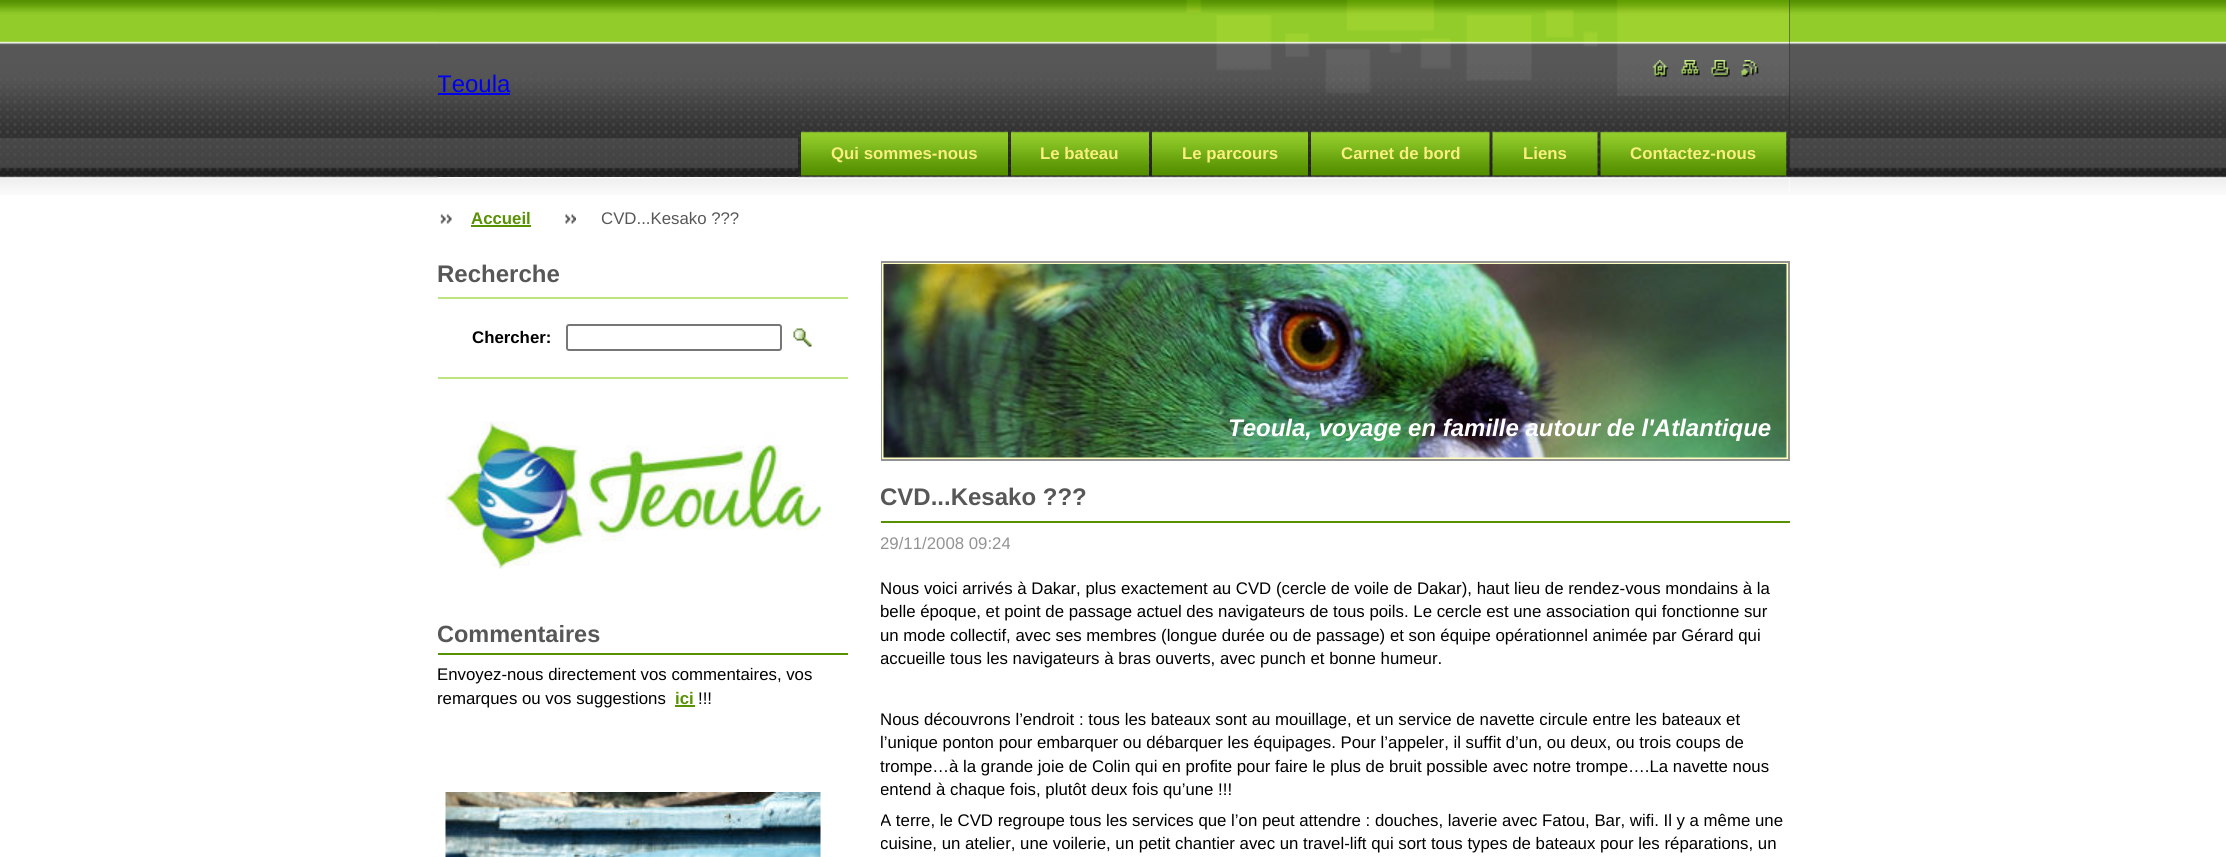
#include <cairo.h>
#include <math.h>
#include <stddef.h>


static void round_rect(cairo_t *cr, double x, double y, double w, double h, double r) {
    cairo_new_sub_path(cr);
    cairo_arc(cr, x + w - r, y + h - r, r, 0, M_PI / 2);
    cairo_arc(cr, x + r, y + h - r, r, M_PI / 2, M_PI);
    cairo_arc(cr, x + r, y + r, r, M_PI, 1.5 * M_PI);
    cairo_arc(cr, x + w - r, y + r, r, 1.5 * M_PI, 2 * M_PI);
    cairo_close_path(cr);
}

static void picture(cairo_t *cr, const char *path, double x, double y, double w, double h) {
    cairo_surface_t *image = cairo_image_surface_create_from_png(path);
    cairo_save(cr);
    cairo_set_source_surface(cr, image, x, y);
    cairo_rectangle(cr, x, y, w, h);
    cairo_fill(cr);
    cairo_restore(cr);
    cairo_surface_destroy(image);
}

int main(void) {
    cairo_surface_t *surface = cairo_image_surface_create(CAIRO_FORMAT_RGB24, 2226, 857);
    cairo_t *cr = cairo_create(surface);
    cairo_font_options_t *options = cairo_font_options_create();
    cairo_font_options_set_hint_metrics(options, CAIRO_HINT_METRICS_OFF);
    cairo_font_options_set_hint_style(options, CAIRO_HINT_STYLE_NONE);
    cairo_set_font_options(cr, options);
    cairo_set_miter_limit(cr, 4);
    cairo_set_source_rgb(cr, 1, 1, 1);
    cairo_paint(cr);
    picture(cr, "img1.png", 0, 0, 2226, 195);
    cairo_set_source_rgb(cr, 0.149, 0.149, 0.149);
    cairo_rectangle(cr, 1789, 0, 1, 177);
    cairo_fill(cr);
    picture(cr, "img2.png", 438, 0, 1352, 177);
    picture(cr, "img3.png", 1652, 60, 17, 17);
    picture(cr, "img4.png", 1681, 60, 19, 16);
    picture(cr, "img5.png", 1711, 60, 19, 17);
    picture(cr, "img6.png", 1741, 60, 18, 17);
    cairo_save(cr);
    cairo_rectangle(cr, 438, 47, 750, 75);
    cairo_clip(cr);
    cairo_select_font_face(cr, "Liberation Sans", CAIRO_FONT_SLANT_NORMAL, CAIRO_FONT_WEIGHT_NORMAL);
    cairo_set_font_size(cr, 24);
    cairo_set_source_rgb(cr, 0, 0, 0.933);
    cairo_move_to(cr, 437, 92);
    cairo_show_text(cr, "Teoula");
    cairo_restore(cr);
    cairo_set_source_rgb(cr, 0, 0, 0.933);
    cairo_rectangle(cr, 438, 93, 72, 2);
    cairo_fill(cr);
    cairo_set_source_rgb(cr, 1, 1, 1);
    cairo_rectangle(cr, 438, 177, 1352, 18);
    cairo_fill(cr);
    picture(cr, "img14.png", 438, 177, 1352, 18);
    picture(cr, "img7.png", 798, 123, 992, 56);
    picture(cr, "img8.png", 801, 131, 207, 45);
    cairo_select_font_face(cr, "Liberation Sans", CAIRO_FONT_SLANT_NORMAL, CAIRO_FONT_WEIGHT_BOLD);
    cairo_set_font_size(cr, 16.8);
    cairo_set_source_rgb(cr, 0.976, 0.937, 0.498);
    cairo_move_to(cr, 831, 159);
    cairo_show_text(cr, "Qui sommes-nous");
    picture(cr, "img9.png", 1011, 131, 138, 45);
    cairo_move_to(cr, 1040, 159);
    cairo_show_text(cr, "Le bateau");
    picture(cr, "img10.png", 1152, 131, 156, 45);
    cairo_move_to(cr, 1182, 159);
    cairo_show_text(cr, "Le parcours");
    picture(cr, "img11.png", 1311, 131, 179, 45);
    cairo_move_to(cr, 1341, 159);
    cairo_show_text(cr, "Carnet de bord");
    picture(cr, "img12.png", 1492, 131, 106, 45);
    cairo_move_to(cr, 1523, 159);
    cairo_show_text(cr, "Liens");
    picture(cr, "img13.png", 1600, 131, 187, 45);
    cairo_move_to(cr, 1630, 159);
    cairo_show_text(cr, "Contactez-nous");
    picture(cr, "img15.png", 440, 214, 12, 10);
    cairo_set_source_rgb(cr, 0.345, 0.573, 0.012);
    cairo_move_to(cr, 471, 224);
    cairo_show_text(cr, "Accueil");
    cairo_rectangle(cr, 471, 225, 60, 2);
    cairo_fill(cr);
    picture(cr, "img16.png", 565, 214, 11, 10);
    cairo_select_font_face(cr, "Liberation Sans", CAIRO_FONT_SLANT_NORMAL, CAIRO_FONT_WEIGHT_NORMAL);
    cairo_set_source_rgb(cr, 0.341, 0.341, 0.341);
    cairo_move_to(cr, 601, 224);
    cairo_show_text(cr, "CVD...Kesako ?\077?");
    cairo_select_font_face(cr, "Liberation Sans", CAIRO_FONT_SLANT_NORMAL, CAIRO_FONT_WEIGHT_BOLD);
    cairo_set_font_size(cr, 24);
    cairo_move_to(cr, 437, 282);
    cairo_show_text(cr, "Recherche");
    cairo_set_source_rgb(cr, 0.737, 0.89, 0.486);
    cairo_rectangle(cr, 438, 297, 410, 2);
    cairo_fill(cr);
    cairo_rectangle(cr, 438, 377, 410, 2);
    cairo_fill(cr);
    cairo_set_font_size(cr, 16.8);
    cairo_set_source_rgb(cr, 0, 0, 0);
    cairo_move_to(cr, 472, 343);
    cairo_show_text(cr, "Chercher:");
    round_rect(cr, 567, 325, 214, 25, 2);
    cairo_set_source_rgb(cr, 0.463, 0.463, 0.463);
    cairo_stroke(cr);
    picture(cr, "img17.png", 793, 328, 19, 19);
    picture(cr, "img18.png", 445, 421, 376, 148);
    cairo_set_source_rgb(cr, 0.337, 0.569, 0.008);
    cairo_rectangle(cr, 438, 653, 410, 2);
    cairo_fill(cr);
    cairo_set_font_size(cr, 23.5);
    cairo_set_source_rgb(cr, 0.341, 0.341, 0.341);
    cairo_move_to(cr, 437, 642);
    cairo_show_text(cr, "Commentaires");
    cairo_select_font_face(cr, "Liberation Sans", CAIRO_FONT_SLANT_NORMAL, CAIRO_FONT_WEIGHT_NORMAL);
    cairo_set_font_size(cr, 16.8);
    cairo_set_source_rgb(cr, 0, 0, 0);
    cairo_move_to(cr, 437, 680);
    cairo_show_text(cr, "Envoyez-nous directement vos commentaires, vos");
    cairo_move_to(cr, 437, 704);
    cairo_show_text(cr, "remarques ou vos suggestions");
    cairo_select_font_face(cr, "Liberation Sans", CAIRO_FONT_SLANT_NORMAL, CAIRO_FONT_WEIGHT_BOLD);
    cairo_set_source_rgb(cr, 0.345, 0.573, 0.012);
    cairo_move_to(cr, 675, 704);
    cairo_show_text(cr, "ici");
    cairo_rectangle(cr, 675, 705, 20, 2);
    cairo_fill(cr);
    cairo_select_font_face(cr, "Liberation Sans", CAIRO_FONT_SLANT_NORMAL, CAIRO_FONT_WEIGHT_NORMAL);
    cairo_set_source_rgb(cr, 0, 0, 0);
    cairo_move_to(cr, 698, 704);
    cairo_show_text(cr, "!!!");
    picture(cr, "img19.png", 445, 792, 376, 65);
    cairo_rectangle(cr, 882, 262, 907, 198);
    cairo_set_source_rgb(cr, 0.576, 0.576, 0.576);
    cairo_stroke(cr);
    cairo_rectangle(cr, 883, 264, 904, 194);
    cairo_set_source_rgb(cr, 1, 1, 0.745);
    cairo_stroke(cr);
    picture(cr, "img20.png", 883, 264, 904, 194);
    cairo_select_font_face(cr, "Liberation Sans", CAIRO_FONT_SLANT_ITALIC, CAIRO_FONT_WEIGHT_BOLD);
    cairo_set_font_size(cr, 24);
    cairo_set_source_rgb(cr, 1, 1, 1);
    cairo_move_to(cr, 1228, 436);
    cairo_show_text(cr, "Teoula, voyage en famille autour de l'Atlantique");
    cairo_save(cr);
    cairo_rectangle(cr, 881, 261, 909, 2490);
    cairo_clip(cr);
    cairo_select_font_face(cr, "Liberation Sans", CAIRO_FONT_SLANT_NORMAL, CAIRO_FONT_WEIGHT_BOLD);
    cairo_set_source_rgb(cr, 0.341, 0.341, 0.341);
    cairo_move_to(cr, 880, 505);
    cairo_show_text(cr, "CVD...Kesako ?\077?");
    cairo_restore(cr);
    cairo_set_source_rgb(cr, 0.337, 0.569, 0.008);
    cairo_rectangle(cr, 881, 521, 909, 2);
    cairo_fill(cr);
    cairo_save(cr);
    cairo_rectangle(cr, 881, 261, 909, 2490);
    cairo_clip(cr);
    cairo_select_font_face(cr, "Liberation Sans", CAIRO_FONT_SLANT_NORMAL, CAIRO_FONT_WEIGHT_NORMAL);
    cairo_set_font_size(cr, 16.8);
    cairo_set_source_rgb(cr, 0.576, 0.576, 0.576);
    cairo_move_to(cr, 880, 549);
    cairo_show_text(cr, "29/11/2008 09:24");
    cairo_restore(cr);
    cairo_select_font_face(cr, "Liberation Sans", CAIRO_FONT_SLANT_NORMAL, CAIRO_FONT_WEIGHT_NORMAL);
    cairo_set_font_size(cr, 16.8);
    cairo_set_source_rgb(cr, 0, 0, 0);
    cairo_move_to(cr, 880, 594);
    cairo_show_text(cr, "Nous voici arrivés à Dakar, plus exactement au CVD (cercle de voile de Dakar), haut lieu de rendez-vous mondains à la");
    cairo_save(cr);
    cairo_rectangle(cr, 881, 261, 909, 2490);
    cairo_clip(cr);
    cairo_move_to(cr, 880, 617);
    cairo_show_text(cr, "belle époque, et point de passage actuel des navigateurs de tous poils. Le cercle est une association qui fonctionne sur");
    cairo_move_to(cr, 880, 641);
    cairo_show_text(cr, "un mode collectif, avec ses membres (longue durée ou de passage) et son équipe opérationnel animée par Gérard qui");
    cairo_move_to(cr, 880, 664);
    cairo_show_text(cr, "accueille tous les navigateurs à bras ouverts, avec punch et bonne humeur.");
    cairo_restore(cr);
    cairo_move_to(cr, 880, 725);
    cairo_show_text(cr, "Nous découvrons l’endroit : tous les bateaux sont au mouillage, et un service de navette circule entre les bateaux et");
    cairo_save(cr);
    cairo_rectangle(cr, 881, 261, 909, 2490);
    cairo_clip(cr);
    cairo_move_to(cr, 880, 748);
    cairo_show_text(cr, "l’unique ponton pour embarquer ou débarquer les équipages. Pour l’appeler, il suffit d’un, ou deux, ou trois coups de");
    cairo_restore(cr);
    cairo_move_to(cr, 880, 772);
    cairo_show_text(cr, "trompe…à la grande joie de Colin qui en profite pour faire le plus de bruit possible avec notre trompe….La navette nous");
    cairo_save(cr);
    cairo_rectangle(cr, 881, 261, 909, 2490);
    cairo_clip(cr);
    cairo_move_to(cr, 880, 795);
    cairo_show_text(cr, "entend à chaque fois, plutôt deux fois qu’une !!!");
    cairo_move_to(cr, 880, 826);
    cairo_show_text(cr, "A terre, le CVD regroupe tous les services que l’on peut attendre : douches, laverie avec Fatou, Bar, wifi. Il y a même une");
    cairo_move_to(cr, 880, 849);
    cairo_show_text(cr, "cuisine, un atelier, une voilerie, un petit chantier avec un travel-lift qui sort tous types de bateaux pour les réparations, un");
    cairo_restore(cr);
    cairo_surface_write_to_png(surface, "page.png");
    cairo_font_options_destroy(options);
    cairo_destroy(cr);
    cairo_surface_destroy(surface);
    return 0;
}
